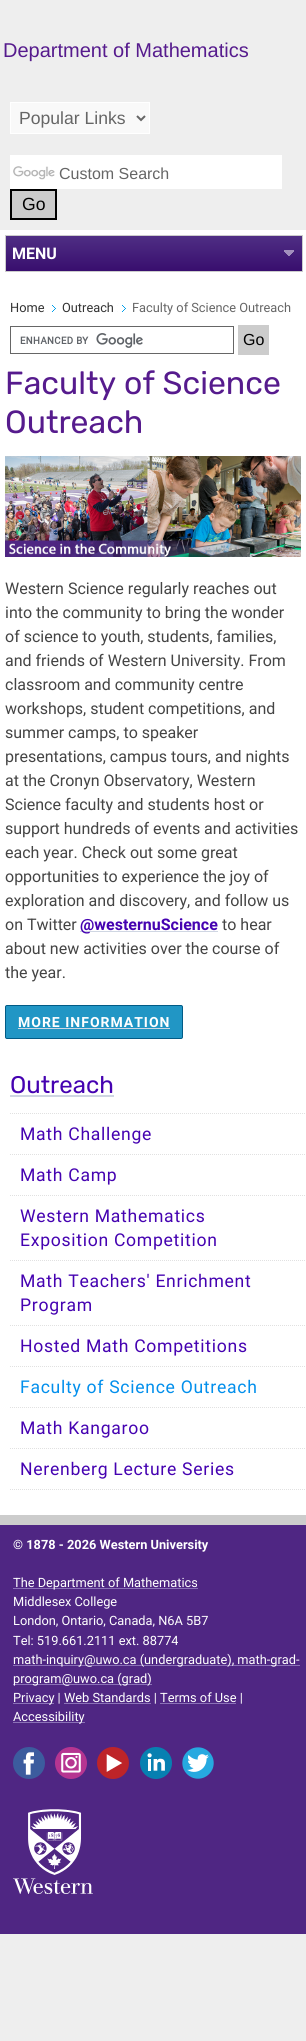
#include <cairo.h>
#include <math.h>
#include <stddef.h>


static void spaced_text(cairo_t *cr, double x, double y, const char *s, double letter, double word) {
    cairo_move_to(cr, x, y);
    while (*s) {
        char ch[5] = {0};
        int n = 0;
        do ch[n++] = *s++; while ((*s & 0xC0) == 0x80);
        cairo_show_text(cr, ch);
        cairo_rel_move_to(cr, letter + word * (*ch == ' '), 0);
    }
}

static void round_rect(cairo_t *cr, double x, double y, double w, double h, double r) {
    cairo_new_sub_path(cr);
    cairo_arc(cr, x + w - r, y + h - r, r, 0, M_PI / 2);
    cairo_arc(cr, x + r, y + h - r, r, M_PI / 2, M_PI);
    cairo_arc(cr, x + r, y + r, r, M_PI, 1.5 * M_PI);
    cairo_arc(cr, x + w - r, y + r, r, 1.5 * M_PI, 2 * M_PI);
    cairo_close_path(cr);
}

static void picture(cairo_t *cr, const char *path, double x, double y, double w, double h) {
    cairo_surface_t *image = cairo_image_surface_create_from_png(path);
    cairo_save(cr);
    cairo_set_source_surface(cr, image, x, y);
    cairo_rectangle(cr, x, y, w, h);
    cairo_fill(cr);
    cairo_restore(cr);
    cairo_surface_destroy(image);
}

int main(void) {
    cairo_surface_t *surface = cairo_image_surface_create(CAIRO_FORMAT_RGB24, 306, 2041);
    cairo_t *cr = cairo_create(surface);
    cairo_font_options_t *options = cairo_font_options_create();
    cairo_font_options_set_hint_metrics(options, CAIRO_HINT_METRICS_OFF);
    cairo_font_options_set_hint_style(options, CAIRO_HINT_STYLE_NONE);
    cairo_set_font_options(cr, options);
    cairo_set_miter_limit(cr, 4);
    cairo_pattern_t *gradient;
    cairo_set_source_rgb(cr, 0.933, 0.933, 0.933);
    cairo_paint(cr);
    cairo_select_font_face(cr, "Liberation Sans", CAIRO_FONT_SLANT_NORMAL, CAIRO_FONT_WEIGHT_NORMAL);
    cairo_set_font_size(cr, 20);
    cairo_set_source_rgb(cr, 0.337, 0.106, 0.553);
    cairo_move_to(cr, 3, 57);
    cairo_show_text(cr, "Department of Mathematics");
    cairo_set_source_rgb(cr, 0.973, 0.973, 0.973);
    cairo_rectangle(cr, 10.5, 102.5, 139, 31);
    cairo_fill_preserve(cr);
    cairo_set_source_rgb(cr, 1, 1, 1);
    cairo_set_line_width(cr, 1);
    cairo_stroke(cr);
    cairo_new_path(cr);
    cairo_move_to(cr, 137, 116);
    cairo_line_to(cr, 141, 120);
    cairo_line_to(cr, 145, 116);
    cairo_set_source_rgb(cr, 0.4, 0.4, 0.4);
    cairo_set_line_width(cr, 2);
    cairo_stroke(cr);
    cairo_set_font_size(cr, 17.6);
    cairo_move_to(cr, 19, 124);
    cairo_show_text(cr, "Popular Links");
    cairo_set_source_rgb(cr, 1, 1, 1);
    cairo_rectangle(cr, 10, 155, 272, 34);
    cairo_fill(cr);
    picture(cr, "img1.png", 13, 166, 42, 14);
    cairo_set_font_size(cr, 16);
    cairo_set_source_rgb(cr, 0.4, 0.4, 0.4);
    cairo_move_to(cr, 59, 179);
    cairo_show_text(cr, "Custom Search");
    cairo_set_source_rgb(cr, 0.8, 0.8, 0.8);
    cairo_rectangle(cr, 11, 190, 45, 29);
    cairo_fill_preserve(cr);
    cairo_set_source_rgb(cr, 0, 0, 0);
    cairo_stroke(cr);
    cairo_set_font_size(cr, 17.6);
    cairo_move_to(cr, 22, 210);
    cairo_show_text(cr, "Go");
    cairo_set_source_rgb(cr, 1, 1, 1);
    cairo_rectangle(cr, 0, 230, 306, 1285);
    cairo_fill(cr);
    gradient = cairo_pattern_create_linear(6, 236, 6, 271);
    cairo_pattern_add_color_stop_rgba(gradient, 0, 0.31, 0.18, 0.518, 1);
    cairo_pattern_add_color_stop_rgba(gradient, 1, 0.22, 0.055, 0.431, 1);
    cairo_set_source(cr, gradient);
    cairo_pattern_destroy(gradient);
    cairo_rectangle(cr, 6, 236, 296, 35);
    cairo_fill(cr);
    cairo_rectangle(cr, 5.5, 235.5, 297, 36);
    cairo_set_source_rgb(cr, 0.8, 0.8, 0.8);
    cairo_set_line_width(cr, 1);
    cairo_stroke(cr);
    picture(cr, "img2.png", 284, 250, 10, 6);
    cairo_select_font_face(cr, "Roboto", CAIRO_FONT_SLANT_NORMAL, CAIRO_FONT_WEIGHT_BOLD);
    cairo_set_font_size(cr, 16);
    cairo_set_source_rgb(cr, 1, 1, 1);
    cairo_move_to(cr, 12, 259);
    cairo_show_text(cr, "MENU");
    picture(cr, "img3.png", 47, 303, 9, 9);
    cairo_select_font_face(cr, "Roboto", CAIRO_FONT_SLANT_NORMAL, CAIRO_FONT_WEIGHT_NORMAL);
    cairo_set_font_size(cr, 12.8);
    cairo_set_source_rgb(cr, 0.2, 0.2, 0.2);
    cairo_move_to(cr, 10, 312);
    cairo_show_text(cr, "Home");
    picture(cr, "img3.png", 117, 303, 9, 9);
    cairo_move_to(cr, 62, 312);
    cairo_show_text(cr, "Outreach");
    cairo_set_source_rgb(cr, 0.4, 0.4, 0.4);
    cairo_move_to(cr, 132, 312);
    cairo_show_text(cr, "Faculty of Science Outreach");
    picture(cr, "img4.png", 20, 333, 123, 15);
    cairo_rectangle(cr, 10.5, 326.5, 223, 27);
    cairo_stroke(cr);
    cairo_set_source_rgb(cr, 0.8, 0.8, 0.8);
    cairo_rectangle(cr, 238, 325, 31, 30);
    cairo_fill(cr);
    cairo_select_font_face(cr, "Liberation Sans", CAIRO_FONT_SLANT_NORMAL, CAIRO_FONT_WEIGHT_NORMAL);
    cairo_set_font_size(cr, 16);
    cairo_set_source_rgb(cr, 0, 0, 0);
    cairo_move_to(cr, 243, 345);
    cairo_show_text(cr, "Go");
    cairo_select_font_face(cr, "Rubik", CAIRO_FONT_SLANT_NORMAL, CAIRO_FONT_WEIGHT_NORMAL);
    cairo_set_font_size(cr, 32);
    cairo_set_source_rgb(cr, 0.337, 0.106, 0.553);
    cairo_move_to(cr, 5, 394);
    cairo_show_text(cr, "Faculty of Science");
    cairo_move_to(cr, 5, 433);
    cairo_show_text(cr, "Outreach");
    picture(cr, "img5.png", 5, 456, 296, 101);
    cairo_select_font_face(cr, "Roboto", CAIRO_FONT_SLANT_NORMAL, CAIRO_FONT_WEIGHT_NORMAL);
    cairo_set_font_size(cr, 16);
    cairo_set_source_rgb(cr, 0.267, 0.267, 0.267);
    cairo_move_to(cr, 5, 594);
    cairo_show_text(cr, "Western Science regularly reaches out");
    cairo_move_to(cr, 5, 618);
    cairo_show_text(cr, "into the community to bring the wonder");
    cairo_move_to(cr, 5, 642);
    cairo_show_text(cr, "of science to youth, students, families,");
    cairo_move_to(cr, 5, 666);
    cairo_show_text(cr, "and friends of Western University. From");
    cairo_move_to(cr, 5, 690);
    cairo_show_text(cr, "classroom and community centre");
    cairo_move_to(cr, 5, 714);
    cairo_show_text(cr, "workshops, student competitions, and");
    cairo_move_to(cr, 5, 738);
    cairo_show_text(cr, "summer camps, to speaker");
    cairo_move_to(cr, 5, 762);
    cairo_show_text(cr, "presentations, campus tours, and nights");
    cairo_move_to(cr, 5, 786);
    cairo_show_text(cr, "at the Cronyn Observatory, Western");
    cairo_move_to(cr, 5, 810);
    cairo_show_text(cr, "Science faculty and students host or");
    cairo_move_to(cr, 5, 834);
    cairo_show_text(cr, "support hundreds of events and activities");
    cairo_move_to(cr, 5, 858);
    cairo_show_text(cr, "each year. Check out some great");
    cairo_move_to(cr, 5, 882);
    cairo_show_text(cr, "opportunities to experience the joy of");
    cairo_move_to(cr, 5, 906);
    cairo_show_text(cr, "exploration and discovery, and follow us");
    cairo_move_to(cr, 5, 930);
    cairo_show_text(cr, "on Twitter");
    cairo_set_source_rgb(cr, 0.812, 0.839, 0.886);
    cairo_rectangle(cr, 80, 931, 138, 1);
    cairo_fill(cr);
    cairo_select_font_face(cr, "Roboto", CAIRO_FONT_SLANT_NORMAL, CAIRO_FONT_WEIGHT_BOLD);
    cairo_set_source_rgb(cr, 0.271, 0.008, 0.694);
    cairo_move_to(cr, 80, 930);
    cairo_show_text(cr, "@westernuScience");
    cairo_select_font_face(cr, "Roboto", CAIRO_FONT_SLANT_NORMAL, CAIRO_FONT_WEIGHT_NORMAL);
    cairo_set_source_rgb(cr, 0.267, 0.267, 0.267);
    cairo_move_to(cr, 222, 930);
    cairo_show_text(cr, "to hear");
    cairo_move_to(cr, 5, 954);
    cairo_show_text(cr, "about new activities over the course of");
    cairo_move_to(cr, 5, 978);
    cairo_show_text(cr, "the year.");
    cairo_set_source_rgb(cr, 0.129, 0.588, 0.773);
    round_rect(cr, 5.5, 1005.5, 177, 33, 1.5);
    cairo_fill_preserve(cr);
    cairo_set_source_rgb(cr, 0.004, 0.357, 0.525);
    cairo_stroke(cr);
    cairo_select_font_face(cr, "Roboto", CAIRO_FONT_SLANT_NORMAL, CAIRO_FONT_WEIGHT_BOLD);
    cairo_set_font_size(cr, 14);
    cairo_set_source_rgb(cr, 1, 1, 1);
    spaced_text(cr, 18, 1027, "MORE INFORMATION", 1, 0);
    cairo_set_source_rgb(cr, 0.812, 0.839, 0.886);
    cairo_rectangle(cr, 18, 1028, 152, 1);
    cairo_fill(cr);
    cairo_select_font_face(cr, "Rubik", CAIRO_FONT_SLANT_NORMAL, CAIRO_FONT_WEIGHT_NORMAL);
    cairo_set_font_size(cr, 24);
    cairo_set_source_rgb(cr, 0.271, 0.008, 0.694);
    cairo_move_to(cr, 10, 1093);
    cairo_show_text(cr, "Outreach");
    cairo_set_source_rgb(cr, 0.812, 0.839, 0.886);
    cairo_rectangle(cr, 10, 1095, 104, 2);
    cairo_fill(cr);
    cairo_new_path(cr);
    cairo_move_to(cr, 10, 1113.5);
    cairo_line_to(cr, 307, 1113.5);
    cairo_set_source_rgb(cr, 0.882, 0.882, 0.882);
    cairo_set_dash(cr, (double[]){1, 1}, 2, 0);
    cairo_stroke(cr);
    cairo_new_path(cr);
    cairo_move_to(cr, 10, 1154.5);
    cairo_line_to(cr, 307, 1154.5);
    cairo_stroke(cr);
    cairo_select_font_face(cr, "Roboto", CAIRO_FONT_SLANT_NORMAL, CAIRO_FONT_WEIGHT_NORMAL);
    cairo_set_font_size(cr, 17.6);
    cairo_set_source_rgb(cr, 0.271, 0.008, 0.694);
    spaced_text(cr, 20, 1140, "Math Challenge", 0.7, 0);
    cairo_new_path(cr);
    cairo_move_to(cr, 10, 1195.5);
    cairo_line_to(cr, 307, 1195.5);
    cairo_set_source_rgb(cr, 0.882, 0.882, 0.882);
    cairo_stroke(cr);
    cairo_set_source_rgb(cr, 0.271, 0.008, 0.694);
    spaced_text(cr, 20, 1181, "Math Camp", 0.7, 0);
    cairo_new_path(cr);
    cairo_move_to(cr, 10, 1260.5);
    cairo_line_to(cr, 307, 1260.5);
    cairo_set_source_rgb(cr, 0.882, 0.882, 0.882);
    cairo_stroke(cr);
    cairo_set_source_rgb(cr, 0.271, 0.008, 0.694);
    spaced_text(cr, 20, 1222, "Western Mathematics", 0.7, 0);
    spaced_text(cr, 20, 1246, "Exposition Competition", 0.7, 0);
    cairo_new_path(cr);
    cairo_move_to(cr, 10, 1325.5);
    cairo_line_to(cr, 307, 1325.5);
    cairo_set_source_rgb(cr, 0.882, 0.882, 0.882);
    cairo_stroke(cr);
    cairo_set_source_rgb(cr, 0.271, 0.008, 0.694);
    spaced_text(cr, 20, 1287, "Math Teachers' Enrichment", 0.7, 0);
    spaced_text(cr, 20, 1311, "Program", 0.7, 0);
    spaced_text(cr, 20, 1352, "Hosted Math Competitions", 0.7, 0);
    cairo_new_path(cr);
    cairo_move_to(cr, 10, 1366.5);
    cairo_line_to(cr, 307, 1366.5);
    cairo_set_source_rgb(cr, 0.882, 0.882, 0.882);
    cairo_stroke(cr);
    cairo_new_path(cr);
    cairo_move_to(cr, 10, 1407.5);
    cairo_line_to(cr, 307, 1407.5);
    cairo_stroke(cr);
    cairo_set_source_rgb(cr, 0.008, 0.561, 0.922);
    spaced_text(cr, 20, 1393, "Faculty of Science Outreach", 0.7, 0);
    cairo_new_path(cr);
    cairo_move_to(cr, 10, 1448.5);
    cairo_line_to(cr, 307, 1448.5);
    cairo_set_source_rgb(cr, 0.882, 0.882, 0.882);
    cairo_stroke(cr);
    cairo_set_source_rgb(cr, 0.271, 0.008, 0.694);
    spaced_text(cr, 20, 1434, "Math Kangaroo", 0.7, 0);
    cairo_new_path(cr);
    cairo_move_to(cr, 10, 1489.5);
    cairo_line_to(cr, 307, 1489.5);
    cairo_set_source_rgb(cr, 0.882, 0.882, 0.882);
    cairo_stroke(cr);
    cairo_set_source_rgb(cr, 0.271, 0.008, 0.694);
    spaced_text(cr, 20, 1475, "Nerenberg Lecture Series", 0.7, 0);
    cairo_set_source_rgb(cr, 0.31, 0.149, 0.514);
    cairo_rectangle(cr, 0, 1525, 306, 409);
    cairo_fill(cr);
    cairo_set_source_rgb(cr, 0.8, 0.8, 0.8);
    cairo_rectangle(cr, 0, 1515, 306, 10);
    cairo_fill(cr);
    cairo_select_font_face(cr, "Roboto", CAIRO_FONT_SLANT_NORMAL, CAIRO_FONT_WEIGHT_BOLD);
    cairo_set_font_size(cr, 12.8);
    cairo_set_source_rgb(cr, 1, 1, 1);
    cairo_move_to(cr, 13, 1549);
    cairo_show_text(cr, "© 1878 - 2026 Western University");
    cairo_set_source_rgb(cr, 0.545, 0.443, 0.718);
    cairo_rectangle(cr, 13, 1588, 185, 1);
    cairo_fill(cr);
    cairo_select_font_face(cr, "Roboto", CAIRO_FONT_SLANT_NORMAL, CAIRO_FONT_WEIGHT_NORMAL);
    cairo_set_source_rgb(cr, 1, 1, 1);
    cairo_move_to(cr, 13, 1587);
    cairo_show_text(cr, "The Department of Mathematics");
    cairo_move_to(cr, 13, 1606);
    cairo_show_text(cr, "Middlesex College");
    cairo_move_to(cr, 13, 1625);
    cairo_show_text(cr, "London, Ontario, Canada, N6A 5B7");
    cairo_move_to(cr, 13, 1645);
    cairo_show_text(cr, "Tel: 519.661.2111 ext. 88774");
    cairo_set_source_rgb(cr, 0.545, 0.443, 0.718);
    cairo_rectangle(cr, 13, 1665, 287, 1);
    cairo_fill(cr);
    cairo_set_source_rgb(cr, 1, 1, 1);
    cairo_move_to(cr, 13, 1664);
    cairo_show_text(cr, "math-inquiry@uwo.ca (undergraduate), math-grad-");
    cairo_set_source_rgb(cr, 0.545, 0.443, 0.718);
    cairo_rectangle(cr, 13, 1684, 139, 1);
    cairo_fill(cr);
    cairo_set_source_rgb(cr, 1, 1, 1);
    cairo_move_to(cr, 13, 1683);
    cairo_show_text(cr, "program@uwo.ca (grad)");
    cairo_set_source_rgb(cr, 0.545, 0.443, 0.718);
    cairo_rectangle(cr, 13, 1703, 41, 1);
    cairo_fill(cr);
    cairo_set_source_rgb(cr, 1, 1, 1);
    cairo_move_to(cr, 13, 1702);
    cairo_show_text(cr, "Privacy | Web Standards | Terms of Use |");
    cairo_set_source_rgb(cr, 0.545, 0.443, 0.718);
    cairo_rectangle(cr, 64, 1703, 87, 1);
    cairo_fill(cr);
    cairo_rectangle(cr, 160, 1703, 76, 1);
    cairo_fill(cr);
    cairo_rectangle(cr, 13, 1722, 72, 1);
    cairo_fill(cr);
    cairo_set_source_rgb(cr, 1, 1, 1);
    cairo_move_to(cr, 13, 1721);
    cairo_show_text(cr, "Accessibility");
    picture(cr, "img6.png", 13, 1747, 32, 32);
    picture(cr, "img7.png", 55, 1747, 32, 32);
    picture(cr, "img8.png", 97, 1747, 32, 32);
    picture(cr, "img9.png", 140, 1747, 32, 32);
    picture(cr, "img10.png", 182, 1747, 32, 32);
    picture(cr, "img11.png", 13, 1809, 80, 85);
    cairo_surface_write_to_png(surface, "page.png");
    cairo_font_options_destroy(options);
    cairo_destroy(cr);
    cairo_surface_destroy(surface);
    return 0;
}
